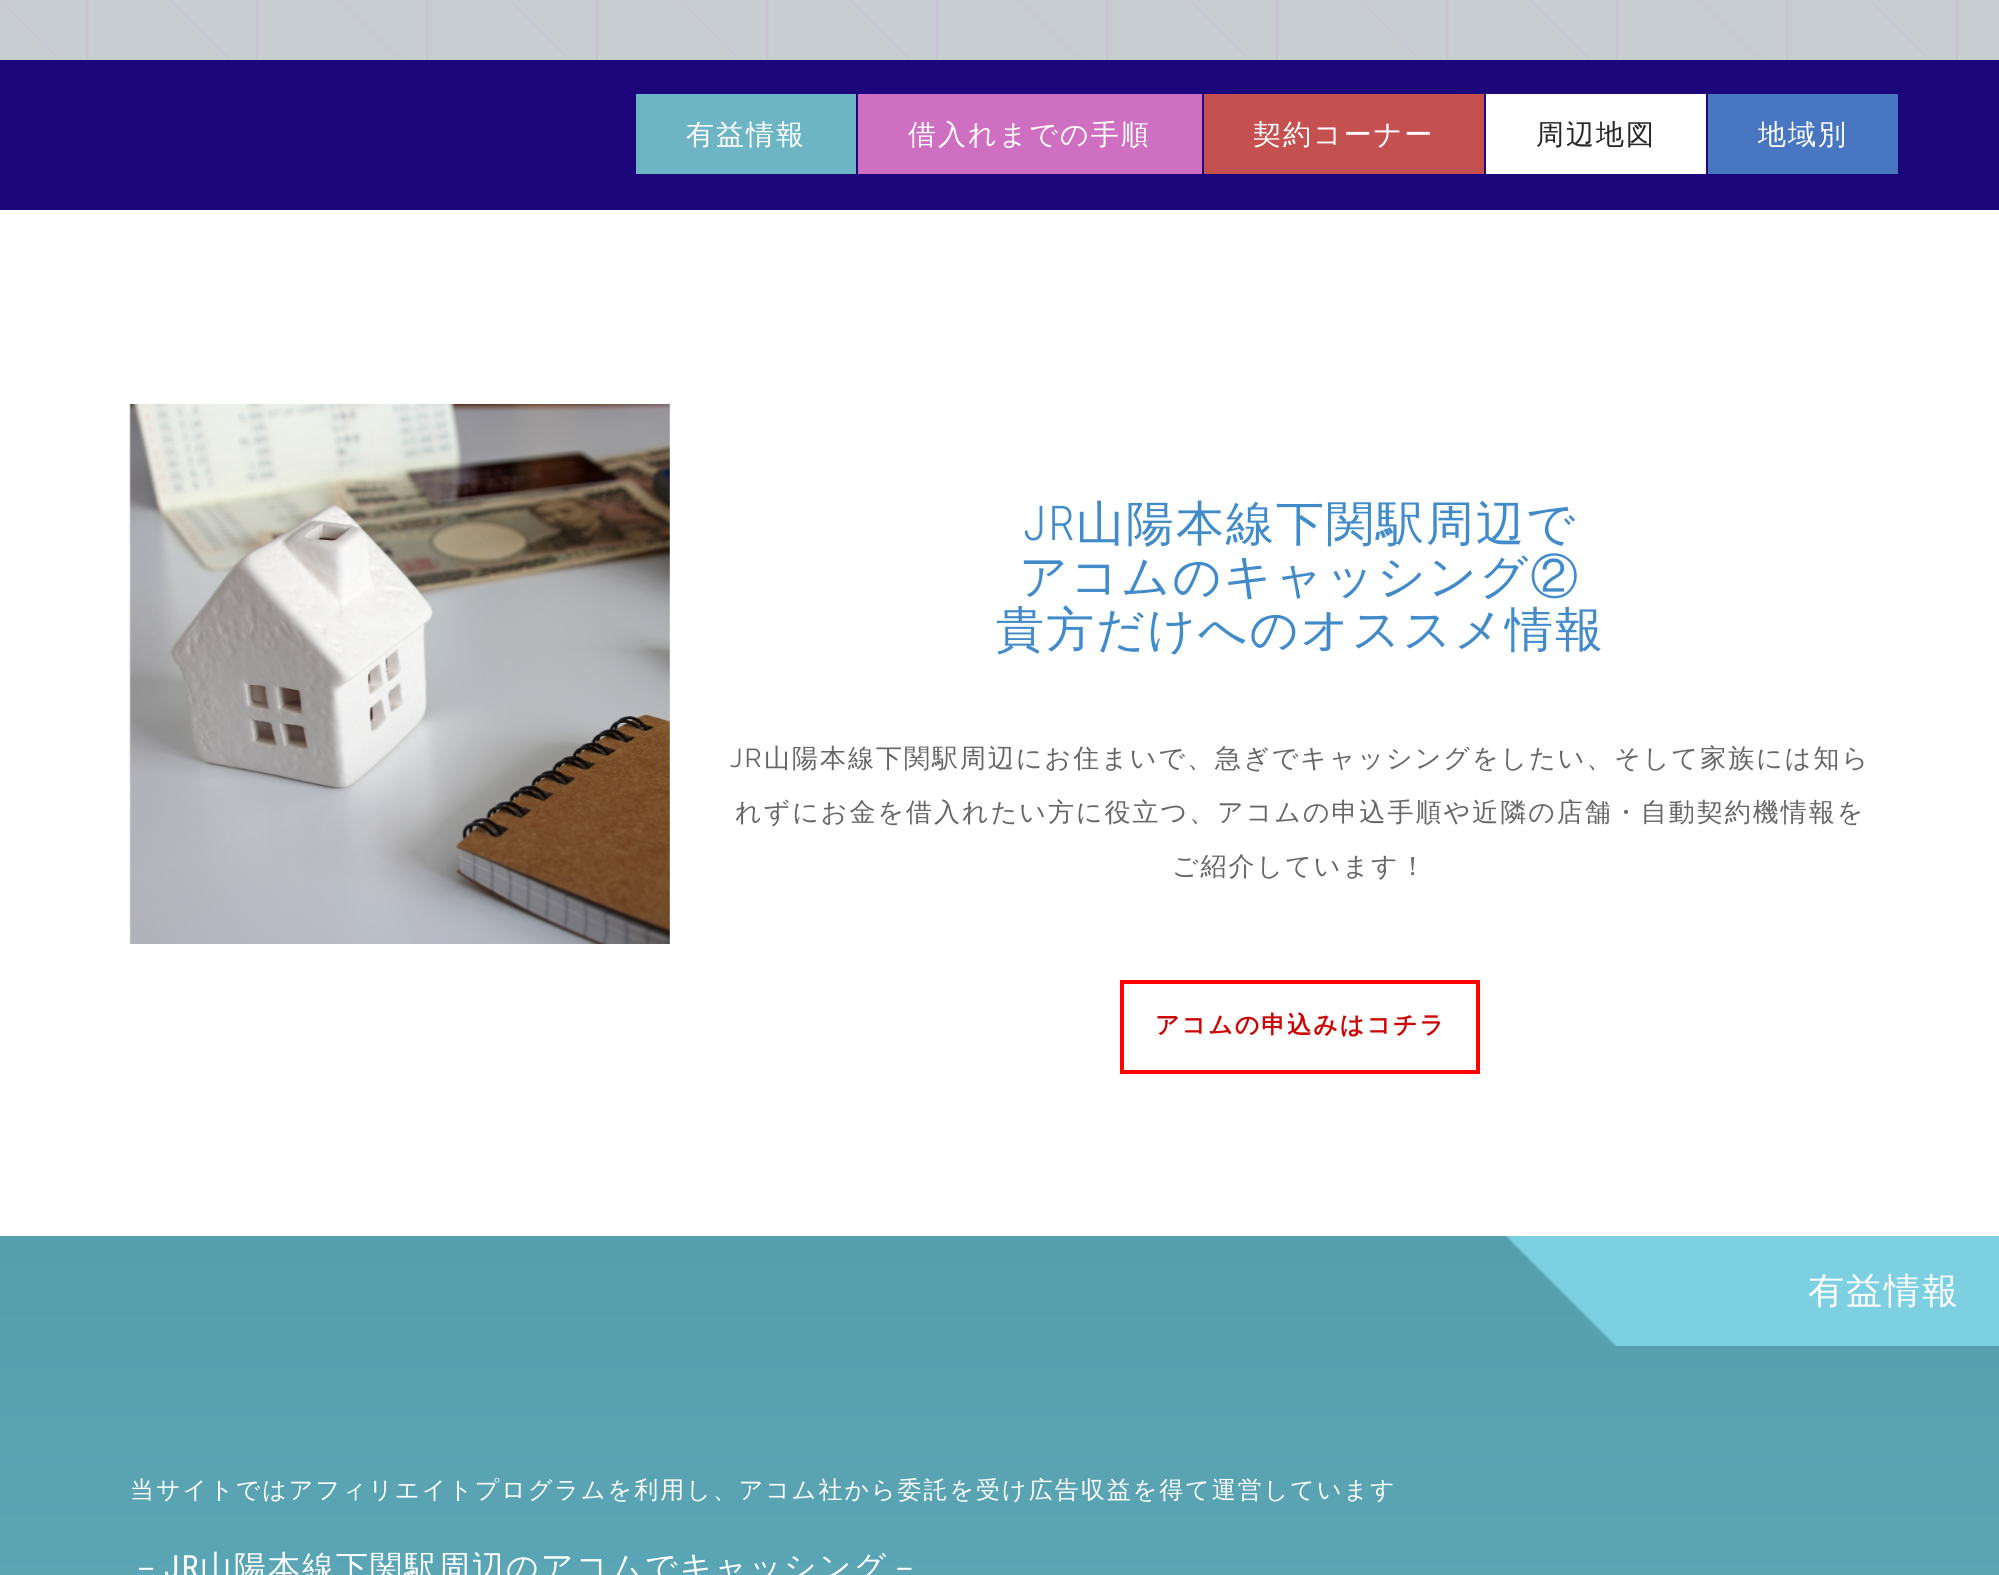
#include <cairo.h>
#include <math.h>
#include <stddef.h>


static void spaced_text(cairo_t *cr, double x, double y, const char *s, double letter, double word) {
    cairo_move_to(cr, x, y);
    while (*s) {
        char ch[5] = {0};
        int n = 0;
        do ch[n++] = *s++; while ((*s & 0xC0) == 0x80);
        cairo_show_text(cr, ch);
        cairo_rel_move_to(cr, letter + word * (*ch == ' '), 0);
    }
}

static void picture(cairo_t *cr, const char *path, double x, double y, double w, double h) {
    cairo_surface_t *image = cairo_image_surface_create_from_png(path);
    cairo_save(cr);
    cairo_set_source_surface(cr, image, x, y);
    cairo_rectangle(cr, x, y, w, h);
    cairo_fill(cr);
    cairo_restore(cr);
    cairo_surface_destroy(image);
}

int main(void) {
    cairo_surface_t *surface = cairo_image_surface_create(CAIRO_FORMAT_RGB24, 1999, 1575);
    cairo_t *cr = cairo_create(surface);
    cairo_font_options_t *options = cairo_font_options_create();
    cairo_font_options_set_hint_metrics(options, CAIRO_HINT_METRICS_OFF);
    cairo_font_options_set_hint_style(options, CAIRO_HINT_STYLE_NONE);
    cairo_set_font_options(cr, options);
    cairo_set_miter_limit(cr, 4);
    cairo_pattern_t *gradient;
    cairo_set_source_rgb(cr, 0.784, 0.804, 0.824);
    cairo_paint(cr);
    picture(cr, "img1.png", 0, 0, 1959, 60);
    cairo_set_source_rgb(cr, 0.106, 0.027, 0.486);
    cairo_rectangle(cr, 0, 60, 1999, 150);
    cairo_fill(cr);
    cairo_set_source_rgb(cr, 0.427, 0.706, 0.769);
    cairo_rectangle(cr, 636, 94, 220, 80);
    cairo_fill(cr);
    cairo_select_font_face(cr, "WenQuanYi Zen Hei Medium", CAIRO_FONT_SLANT_NORMAL, CAIRO_FONT_WEIGHT_NORMAL);
    cairo_set_font_size(cr, 28);
    cairo_set_source_rgb(cr, 1, 1, 1);
    spaced_text(cr, 686, 144, "有益情報", 2, 0);
    cairo_set_source_rgb(cr, 0.812, 0.435, 0.757);
    cairo_rectangle(cr, 858, 94, 344, 80);
    cairo_fill(cr);
    cairo_set_source_rgb(cr, 1, 1, 1);
    spaced_text(cr, 908, 144, "借入れまでの手順", 2, 0);
    cairo_set_source_rgb(cr, 0.773, 0.314, 0.314);
    cairo_rectangle(cr, 1204, 94, 280, 80);
    cairo_fill(cr);
    cairo_set_source_rgb(cr, 1, 1, 1);
    spaced_text(cr, 1253, 144, "契約コーナー", 2, 0);
    cairo_rectangle(cr, 1486, 94, 220, 80);
    cairo_fill(cr);
    cairo_set_source_rgb(cr, 0.149, 0.149, 0.149);
    spaced_text(cr, 1536, 144, "周辺地図", 2, 0);
    cairo_set_source_rgb(cr, 0.282, 0.463, 0.753);
    cairo_rectangle(cr, 1708, 94, 190, 80);
    cairo_fill(cr);
    cairo_set_source_rgb(cr, 1, 1, 1);
    spaced_text(cr, 1758, 144, "地域別", 2, 0);
    cairo_rectangle(cr, 0, 210, 1999, 1026);
    cairo_fill(cr);
    picture(cr, "img2.png", 129, 404, 541, 540);
    cairo_select_font_face(cr, "Roboto Condensed Light", CAIRO_FONT_SLANT_NORMAL, CAIRO_FONT_WEIGHT_NORMAL);
    cairo_set_font_size(cr, 48);
    cairo_set_source_rgb(cr, 0.259, 0.545, 0.792);
    spaced_text(cr, 1023, 540, "JR", 2, 0);
    cairo_select_font_face(cr, "WenQuanYi Zen Hei Medium", CAIRO_FONT_SLANT_NORMAL, CAIRO_FONT_WEIGHT_NORMAL);
    spaced_text(cr, 1076, 540, "山陽本線下関駅周辺で", 2, 0);
    spaced_text(cr, 1019, 593, "アコムのキャッシング②", 2, 0);
    spaced_text(cr, 996, 646, "貴方だけへのオススメ情報", 2, 0);
    cairo_select_font_face(cr, "Raleway", CAIRO_FONT_SLANT_NORMAL, CAIRO_FONT_WEIGHT_NORMAL);
    cairo_set_font_size(cr, 26);
    cairo_set_source_rgb(cr, 0.4, 0.4, 0.4);
    spaced_text(cr, 730, 767, "JR", 2, 0);
    cairo_select_font_face(cr, "WenQuanYi Zen Hei Medium", CAIRO_FONT_SLANT_NORMAL, CAIRO_FONT_WEIGHT_NORMAL);
    spaced_text(cr, 764, 767, "山陽本線下関駅周辺にお住まいで、急ぎでキャッシングをしたい、そして家族には知ら", 2, 0);
    spaced_text(cr, 735, 821, "れずにお金を借入れたい方に役立つ、アコムの申込手順や近隣の店舗・自動契約機情報を", 2, 0);
    spaced_text(cr, 1172, 875, "ご紹介しています！", 2, 0);
    cairo_rectangle(cr, 1122, 982, 356, 90);
    cairo_set_source_rgb(cr, 1, 0, 0);
    cairo_set_line_width(cr, 4);
    cairo_stroke(cr);
    cairo_select_font_face(cr, "WenQuanYi Zen Hei", CAIRO_FONT_SLANT_NORMAL, CAIRO_FONT_WEIGHT_BOLD);
    cairo_set_font_size(cr, 24);
    cairo_set_source_rgb(cr, 0.8, 0.016, 0.016);
    spaced_text(cr, 1155, 1033, "アコムの申込みはコチラ", 2, 0);
    gradient = cairo_pattern_create_linear(1000, 1236, 1000, 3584);
    cairo_pattern_add_color_stop_rgba(gradient, 0, 0.329, 0.62, 0.682, 1);
    cairo_pattern_add_color_stop_rgba(gradient, 1, 0.514, 0.808, 0.871, 1);
    cairo_set_source(cr, gradient);
    cairo_pattern_destroy(gradient);
    cairo_rectangle(cr, 0, 1236, 1999, 339);
    cairo_fill(cr);
    picture(cr, "img3.png", 1506, 1236, 493, 110);
    cairo_select_font_face(cr, "WenQuanYi Zen Hei Medium", CAIRO_FONT_SLANT_NORMAL, CAIRO_FONT_WEIGHT_NORMAL);
    cairo_set_font_size(cr, 36);
    cairo_set_source_rgb(cr, 1, 1, 1);
    spaced_text(cr, 1808, 1303, "有益情報", 2, 0);
    cairo_set_font_size(cr, 24);
    spaced_text(cr, 130, 1498, "当サイトではアフィリエイトプログラムを利用し、アコム社から委託を受け広告収益を得て運営しています", 2, 0);
    cairo_set_font_size(cr, 32);
    spaced_text(cr, 130, 1578, "－", 2, 0);
    cairo_select_font_face(cr, "Roboto Condensed", CAIRO_FONT_SLANT_NORMAL, CAIRO_FONT_WEIGHT_NORMAL);
    spaced_text(cr, 164, 1578, "JR", 2, 0);
    cairo_select_font_face(cr, "WenQuanYi Zen Hei Medium", CAIRO_FONT_SLANT_NORMAL, CAIRO_FONT_WEIGHT_NORMAL);
    spaced_text(cr, 200, 1578, "山陽本線下関駅周辺のアコムでキャッシング－", 2, 0);
    cairo_surface_write_to_png(surface, "page.png");
    cairo_font_options_destroy(options);
    cairo_destroy(cr);
    cairo_surface_destroy(surface);
    return 0;
}
